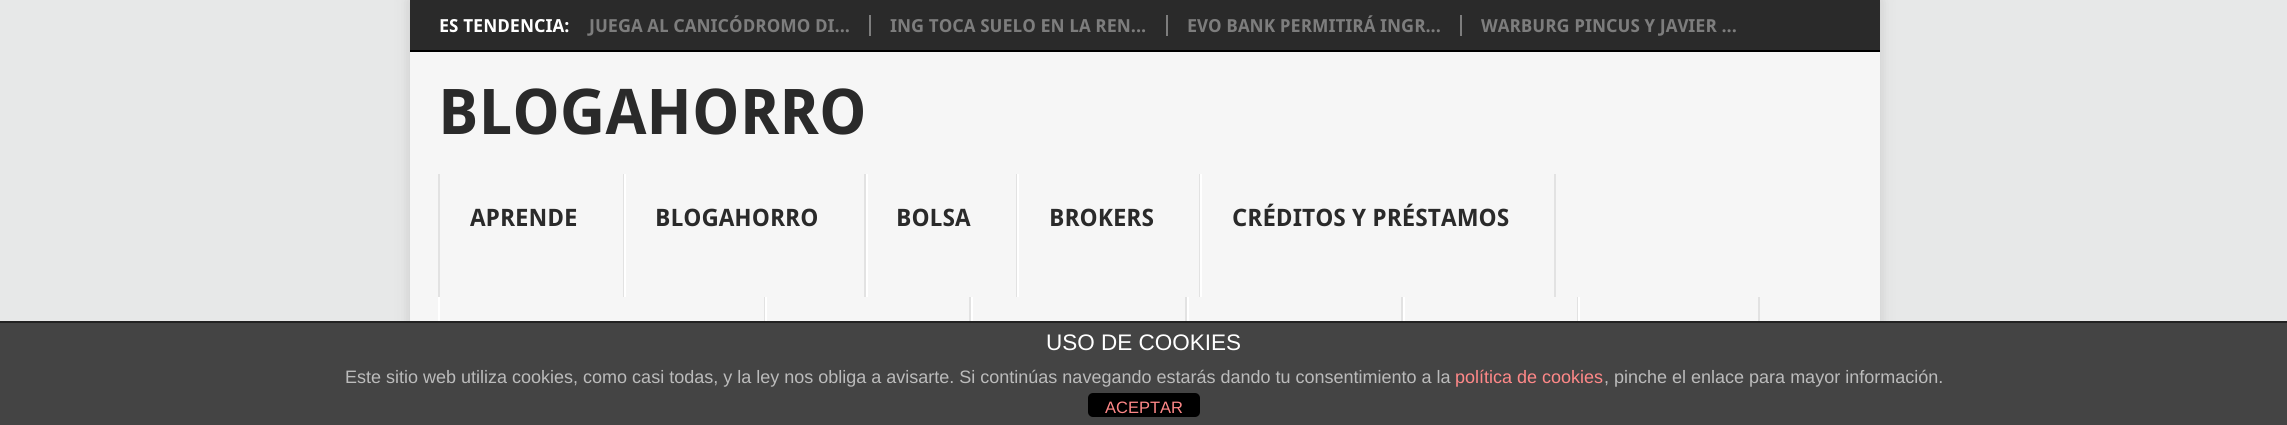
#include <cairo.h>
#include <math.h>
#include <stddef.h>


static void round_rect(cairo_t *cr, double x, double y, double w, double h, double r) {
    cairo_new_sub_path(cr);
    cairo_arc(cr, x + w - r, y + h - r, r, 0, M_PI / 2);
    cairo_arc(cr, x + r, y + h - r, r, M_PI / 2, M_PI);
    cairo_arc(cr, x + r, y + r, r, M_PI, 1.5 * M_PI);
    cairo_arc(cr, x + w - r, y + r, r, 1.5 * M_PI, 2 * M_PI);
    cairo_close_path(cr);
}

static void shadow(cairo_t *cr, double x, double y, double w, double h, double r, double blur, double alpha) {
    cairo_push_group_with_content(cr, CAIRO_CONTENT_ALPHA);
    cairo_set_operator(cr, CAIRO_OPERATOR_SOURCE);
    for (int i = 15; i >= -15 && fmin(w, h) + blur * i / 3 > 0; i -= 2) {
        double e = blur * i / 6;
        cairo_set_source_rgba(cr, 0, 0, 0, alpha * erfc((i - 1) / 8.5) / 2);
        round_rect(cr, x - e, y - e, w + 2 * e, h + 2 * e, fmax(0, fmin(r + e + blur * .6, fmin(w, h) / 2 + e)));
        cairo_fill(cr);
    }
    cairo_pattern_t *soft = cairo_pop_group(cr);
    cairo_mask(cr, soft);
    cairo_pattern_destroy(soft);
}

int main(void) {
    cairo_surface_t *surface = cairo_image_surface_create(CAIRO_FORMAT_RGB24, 2287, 425);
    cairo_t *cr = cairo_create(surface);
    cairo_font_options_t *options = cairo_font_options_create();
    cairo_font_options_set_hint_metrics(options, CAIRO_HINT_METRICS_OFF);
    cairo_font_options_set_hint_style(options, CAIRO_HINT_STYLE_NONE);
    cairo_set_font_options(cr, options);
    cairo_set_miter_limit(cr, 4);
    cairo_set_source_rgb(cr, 0.906, 0.91, 0.91);
    cairo_paint(cr);
    cairo_set_source_rgb(cr, 0.196, 0.196, 0.196);
    shadow(cr, 410, 0, 1470, 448, 0, 7.5, 0.17);
    cairo_set_source_rgb(cr, 0.165, 0.165, 0.165);
    cairo_rectangle(cr, 410, 0, 1470, 50);
    cairo_fill(cr);
    cairo_set_source_rgb(cr, 0, 0, 0);
    cairo_rectangle(cr, 410, 50, 1470, 2);
    cairo_fill(cr);
    cairo_select_font_face(cr, "Droid Sans", CAIRO_FONT_SLANT_NORMAL, CAIRO_FONT_WEIGHT_BOLD);
    cairo_set_font_size(cr, 18);
    cairo_set_source_rgb(cr, 1, 1, 1);
    cairo_move_to(cr, 439, 32);
    cairo_show_text(cr, "ES TENDENCIA:");
    cairo_set_source_rgb(cr, 0.49, 0.49, 0.49);
    cairo_rectangle(cr, 869, 15, 2, 21);
    cairo_fill(cr);
    cairo_move_to(cr, 589, 32);
    cairo_show_text(cr, "JUEGA AL CANICÓDROMO DI...");
    cairo_rectangle(cr, 1166, 15, 2, 21);
    cairo_fill(cr);
    cairo_move_to(cr, 890, 32);
    cairo_show_text(cr, "ING TOCA SUELO EN LA REN...");
    cairo_rectangle(cr, 1460, 15, 2, 21);
    cairo_fill(cr);
    cairo_move_to(cr, 1187, 32);
    cairo_show_text(cr, "EVO BANK PERMITIRÁ INGR...");
    cairo_move_to(cr, 1481, 32);
    cairo_show_text(cr, "WARBURG PINCUS Y JAVIER ...");
    cairo_set_source_rgb(cr, 0.961, 0.961, 0.961);
    cairo_rectangle(cr, 410, 52, 1470, 269);
    cairo_fill(cr);
    cairo_set_font_size(cr, 63);
    cairo_set_source_rgb(cr, 0.165, 0.165, 0.165);
    cairo_move_to(cr, 438, 134);
    cairo_show_text(cr, "BLOGAHORRO");
    cairo_set_source_rgb(cr, 0.886, 0.886, 0.886);
    cairo_rectangle(cr, 623, 174, 1, 123);
    cairo_fill(cr);
    cairo_rectangle(cr, 438, 174, 2, 123);
    cairo_fill(cr);
    cairo_set_font_size(cr, 24);
    cairo_set_source_rgb(cr, 0.165, 0.165, 0.165);
    cairo_move_to(cr, 470, 226);
    cairo_show_text(cr, "APRENDE");
    cairo_set_source_rgb(cr, 0.886, 0.886, 0.886);
    cairo_rectangle(cr, 864, 174, 2, 123);
    cairo_fill(cr);
    cairo_set_source_rgb(cr, 1, 1, 1);
    cairo_rectangle(cr, 624, 174, 2, 123);
    cairo_fill(cr);
    cairo_set_source_rgb(cr, 0.165, 0.165, 0.165);
    cairo_move_to(cr, 655, 226);
    cairo_show_text(cr, "BLOGAHORRO");
    cairo_set_source_rgb(cr, 0.886, 0.886, 0.886);
    cairo_rectangle(cr, 1016, 174, 1, 123);
    cairo_fill(cr);
    cairo_set_source_rgb(cr, 1, 1, 1);
    cairo_rectangle(cr, 866, 174, 2, 123);
    cairo_fill(cr);
    cairo_set_source_rgb(cr, 0.165, 0.165, 0.165);
    cairo_move_to(cr, 896, 226);
    cairo_show_text(cr, "BOLSA");
    cairo_set_source_rgb(cr, 0.886, 0.886, 0.886);
    cairo_rectangle(cr, 1199, 174, 1, 123);
    cairo_fill(cr);
    cairo_set_source_rgb(cr, 1, 1, 1);
    cairo_rectangle(cr, 1017, 174, 2, 123);
    cairo_fill(cr);
    cairo_set_source_rgb(cr, 0.165, 0.165, 0.165);
    cairo_move_to(cr, 1049, 226);
    cairo_show_text(cr, "BROKERS");
    cairo_set_source_rgb(cr, 0.886, 0.886, 0.886);
    cairo_rectangle(cr, 1554, 174, 2, 123);
    cairo_fill(cr);
    cairo_set_source_rgb(cr, 1, 1, 1);
    cairo_rectangle(cr, 1200, 174, 2, 123);
    cairo_fill(cr);
    cairo_set_source_rgb(cr, 0.165, 0.165, 0.165);
    cairo_move_to(cr, 1232, 226);
    cairo_show_text(cr, "CRÉDITOS Y PRÉSTAMOS");
    cairo_set_source_rgb(cr, 0.886, 0.886, 0.886);
    cairo_rectangle(cr, 764, 297, 1, 24);
    cairo_fill(cr);
    cairo_set_source_rgb(cr, 1, 1, 1);
    cairo_rectangle(cr, 438, 297, 2, 24);
    cairo_fill(cr);
    cairo_set_source_rgb(cr, 0.886, 0.886, 0.886);
    cairo_rectangle(cr, 969, 297, 2, 24);
    cairo_fill(cr);
    cairo_set_source_rgb(cr, 1, 1, 1);
    cairo_rectangle(cr, 765, 297, 2, 24);
    cairo_fill(cr);
    cairo_set_source_rgb(cr, 0.886, 0.886, 0.886);
    cairo_rectangle(cr, 1185, 297, 2, 24);
    cairo_fill(cr);
    cairo_set_source_rgb(cr, 1, 1, 1);
    cairo_rectangle(cr, 971, 297, 2, 24);
    cairo_fill(cr);
    cairo_set_source_rgb(cr, 0.886, 0.886, 0.886);
    cairo_rectangle(cr, 1401, 297, 2, 24);
    cairo_fill(cr);
    cairo_set_source_rgb(cr, 1, 1, 1);
    cairo_rectangle(cr, 1187, 297, 2, 24);
    cairo_fill(cr);
    cairo_set_source_rgb(cr, 0.886, 0.886, 0.886);
    cairo_rectangle(cr, 1577, 297, 1, 24);
    cairo_fill(cr);
    cairo_set_source_rgb(cr, 1, 1, 1);
    cairo_rectangle(cr, 1403, 297, 2, 24);
    cairo_fill(cr);
    cairo_set_source_rgb(cr, 0.886, 0.886, 0.886);
    cairo_rectangle(cr, 1758, 297, 2, 24);
    cairo_fill(cr);
    cairo_set_source_rgb(cr, 1, 1, 1);
    cairo_rectangle(cr, 1578, 297, 2, 24);
    cairo_fill(cr);
    cairo_set_source_rgb(cr, 0.267, 0.267, 0.267);
    cairo_rectangle(cr, 0, 323, 2287, 102);
    cairo_fill(cr);
    cairo_set_source_rgb(cr, 0.133, 0.133, 0.133);
    cairo_rectangle(cr, 0, 321, 2287, 2);
    cairo_fill(cr);
    cairo_select_font_face(cr, "Liberation Sans", CAIRO_FONT_SLANT_NORMAL, CAIRO_FONT_WEIGHT_NORMAL);
    cairo_set_font_size(cr, 22.5);
    cairo_set_source_rgb(cr, 1, 1, 1);
    cairo_move_to(cr, 1046, 350);
    cairo_show_text(cr, "USO DE COOKIES");
    cairo_set_font_size(cr, 18);
    cairo_set_source_rgb(cr, 0.733, 0.733, 0.733);
    cairo_move_to(cr, 345, 383);
    cairo_show_text(cr, "Este sitio web utiliza cookies, como casi todas, y la ley nos obliga a avisarte. Si continúas navegando estarás dando tu consentimiento a la");
    cairo_set_source_rgb(cr, 1, 0.533, 0.533);
    cairo_move_to(cr, 1455, 383);
    cairo_show_text(cr, "política de cookies");
    cairo_set_source_rgb(cr, 0.733, 0.733, 0.733);
    cairo_move_to(cr, 1604, 383);
    cairo_show_text(cr, ", pinche el enlace para mayor información.");
    cairo_set_source_rgb(cr, 0, 0, 0);
    round_rect(cr, 1088, 393, 112, 24, 5);
    cairo_fill(cr);
    cairo_set_font_size(cr, 16.5);
    cairo_set_source_rgb(cr, 1, 0.533, 0.533);
    cairo_move_to(cr, 1105, 413);
    cairo_show_text(cr, "ACEPTAR");
    cairo_surface_write_to_png(surface, "page.png");
    cairo_font_options_destroy(options);
    cairo_destroy(cr);
    cairo_surface_destroy(surface);
    return 0;
}
